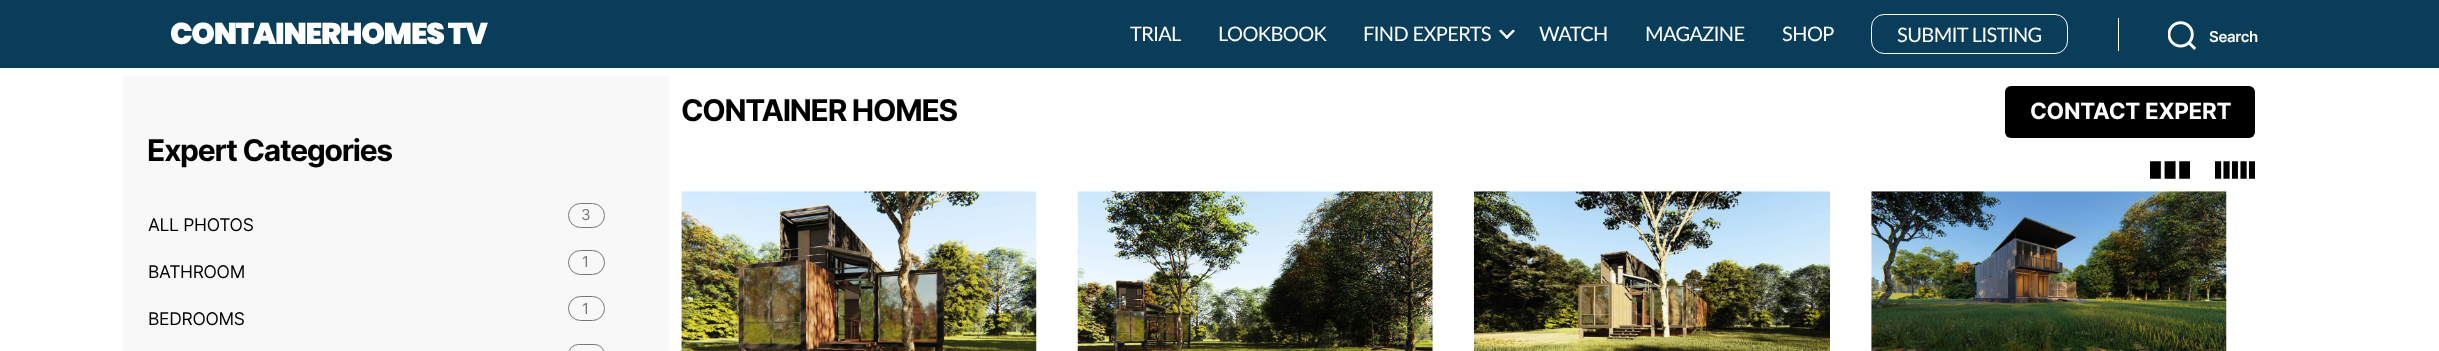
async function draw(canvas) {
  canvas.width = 2439
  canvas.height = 351
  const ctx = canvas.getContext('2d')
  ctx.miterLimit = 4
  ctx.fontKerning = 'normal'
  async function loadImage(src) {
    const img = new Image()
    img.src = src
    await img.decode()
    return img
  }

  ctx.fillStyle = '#fff'
  ctx.fillRect(0, 0, 2439, 351)
  ctx.fillStyle = '#0a3d5a'
  ctx.fillRect(0, 0, 2439, 68)
  ctx.letterSpacing = '-1.25px'
  ctx.font = '900 30px Poppins'
  ctx.fillStyle = '#fff'
  ctx.fillText('CONTAINERHOMES TV', 170, 44)
  ctx.letterSpacing = '-0.6px'
  ctx.font = '20px Lato'
  ctx.fillText('TRIAL', 1130, 41)
  ctx.fillText('LOOKBOOK', 1218, 41)
  ctx.fillText('FIND EXPERTS', 1363, 41)
  ctx.beginPath()
  ctx.moveTo(1499, 31)
  ctx.lineTo(1501, 29.5)
  ctx.lineTo(1508.5, 37.5)
  ctx.lineTo(1507, 39)
  ctx.closePath()
  ctx.fill()
  ctx.beginPath()
  ctx.moveTo(1505, 37.5)
  ctx.lineTo(1513, 29.5)
  ctx.lineTo(1515, 31)
  ctx.lineTo(1507, 39)
  ctx.closePath()
  ctx.fill()
  ctx.fillText('WATCH', 1539, 41)
  ctx.fillText('MAGAZINE', 1645, 41)
  ctx.fillText('SHOP', 1782, 41)
  ctx.beginPath()
  ctx.roundRect(1871.5, 14.5, 196, 39, 12.5)
  ctx.strokeStyle = '#fff'
  ctx.stroke()
  ctx.fillText('SUBMIT LISTING', 1897, 42)
  ctx.fillRect(2118, 18, 1, 33)
  ctx.drawImage(await loadImage('image0.png'), 2168, 21, 28, 29)
  ctx.letterSpacing = '-0.3px'
  ctx.font = '600 15px Inter'
  ctx.fillText('Search', 2209, 42)
  ctx.letterSpacing = '-1.25px'
  ctx.font = 'bold 30px Inter'
  ctx.fillStyle = '#000'
  ctx.fillText('CONTAINER HOMES', 681, 121)
  ctx.beginPath()
  ctx.roundRect(2005, 86, 250, 52, 6)
  ctx.fill()
  ctx.letterSpacing = '-0.3px'
  ctx.font = 'bold 22.5px Inter'
  ctx.fillStyle = '#fff'
  ctx.fillText('CONTACT EXPERT', 2030, 119)
  ctx.drawImage(await loadImage('image1.png'), 2150, 161, 40, 18)
  ctx.drawImage(await loadImage('image2.png'), 2215, 161, 40, 18)
  ctx.drawImage(await loadImage('image3.png'), 681, 191, 356, 160)
  ctx.drawImage(await loadImage('image4.png'), 1077, 191, 356, 160)
  ctx.drawImage(await loadImage('image5.png'), 1473, 191, 357, 160)
  ctx.drawImage(await loadImage('image6.png'), 1871, 191, 356, 160)
  ctx.fillStyle = '#f8f8f8'
  ctx.fillRect(123, 76, 546, 275)
  ctx.letterSpacing = '-1.25px'
  ctx.font = 'bold 30px Inter'
  ctx.fillStyle = '#000'
  ctx.fillText('Expert Categories', 147, 161)
  ctx.beginPath()
  ctx.roundRect(568.5, 203.5, 36, 24, 12)
  ctx.strokeStyle = '#777'
  ctx.stroke()
  ctx.letterSpacing = '-0.3px'
  ctx.font = '15px Inter'
  ctx.fillStyle = '#777'
  ctx.fillText('3', 581, 220)
  ctx.font = '17.5px Inter'
  ctx.fillStyle = '#000'
  ctx.fillText('ALL PHOTOS', 148, 231)
  ctx.beginPath()
  ctx.roundRect(568.5, 250.5, 36, 24, 12)
  ctx.stroke()
  ctx.font = '15px Inter'
  ctx.fillStyle = '#777'
  ctx.fillText('1', 582, 267)
  ctx.font = '17.5px Inter'
  ctx.fillStyle = '#000'
  ctx.fillText('BATHROOM', 148, 278)
  ctx.beginPath()
  ctx.roundRect(568.5, 296.5, 36, 24, 12)
  ctx.stroke()
  ctx.font = '15px Inter'
  ctx.fillStyle = '#777'
  ctx.fillText('1', 582, 314)
  ctx.font = '17.5px Inter'
  ctx.fillStyle = '#000'
  ctx.fillText('BEDROOMS', 148, 325)
  ctx.beginPath()
  ctx.roundRect(568.5, 344.5, 36, 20, 12)
  ctx.stroke()
}

draw(document.querySelector('canvas'))
